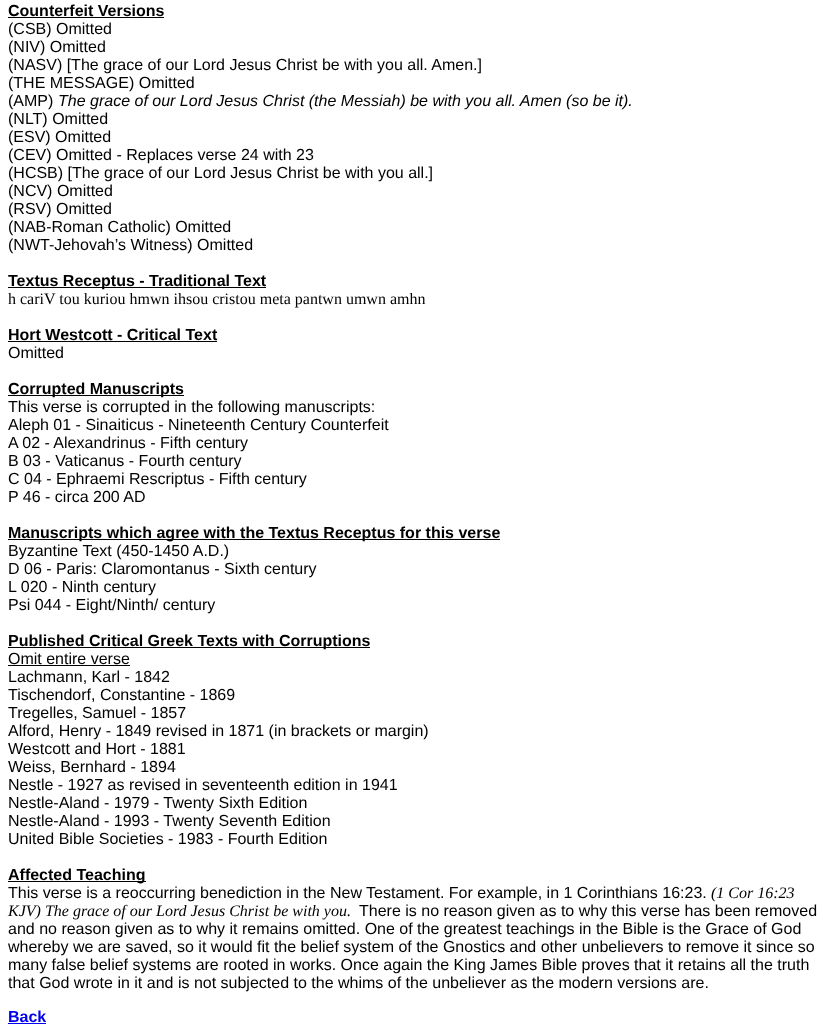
async function draw(canvas) {
  canvas.width = 832
  canvas.height = 1032
  const ctx = canvas.getContext('2d')
  ctx.miterLimit = 4
  ctx.fontKerning = 'normal'

  ctx.fillStyle = '#fff'
  ctx.fillRect(0, 0, 832, 1032)
  ctx.font = 'bold 16px Liberation Sans'
  ctx.fillStyle = '#000'
  ctx.fillText('Counterfeit Versions', 8, 16)
  ctx.fillRect(8, 17, 156, 1)
  ctx.font = '16px Liberation Sans'
  ctx.fillText('(CSB) Omitted', 8, 34)
  ctx.fillText('(NIV) Omitted', 8, 52)
  ctx.fillText('(NASV) [The grace of our Lord Jesus Christ be with you all. Amen.]', 8, 70)
  ctx.fillText('(THE MESSAGE) Omitted', 8, 88)
  ctx.fillText('(AMP)', 8, 106)
  ctx.font = 'italic 16px Liberation Sans'
  ctx.fillText('The grace of our Lord Jesus Christ (the Messiah) be with you all. Amen (so be it).', 58, 106)
  ctx.font = '16px Liberation Sans'
  ctx.fillText('(NLT) Omitted', 8, 124)
  ctx.fillText('(ESV) Omitted', 8, 142)
  ctx.fillText('(CEV) Omitted - Replaces verse 24 with 23', 8, 160)
  ctx.fillText('(HCSB) [The grace of our Lord Jesus Christ be with you all.]', 8, 178)
  ctx.fillText('(NCV) Omitted', 8, 196)
  ctx.fillText('(RSV) Omitted', 8, 214)
  ctx.fillText('(NAB-Roman Catholic) Omitted', 8, 232)
  ctx.fillText('(NWT-Jehovah’s Witness) Omitted', 8, 250)
  ctx.fillRect(8, 287, 258, 1)
  ctx.font = 'bold 16px Liberation Sans'
  ctx.fillText('Textus Receptus - Traditional Text', 8, 286)
  ctx.font = '16px Liberation Serif'
  ctx.fillText('h cariV tou kuriou hmwn ihsou cristou meta pantwn umwn amhn', 8, 304)
  ctx.font = 'bold 16px Liberation Sans'
  ctx.fillText('Hort Westcott - Critical Text', 8, 340)
  ctx.fillRect(8, 341, 209, 1)
  ctx.font = '16px Liberation Sans'
  ctx.fillText('Omitted', 8, 358)
  ctx.fillRect(8, 395, 176, 1)
  ctx.font = 'bold 16px Liberation Sans'
  ctx.fillText('Corrupted Manuscripts', 8, 394)
  ctx.font = '16px Liberation Sans'
  ctx.fillText('This verse is corrupted in the following manuscripts:', 8, 412)
  ctx.fillText('Aleph 01 - Sinaiticus - Nineteenth Century Counterfeit', 8, 430)
  ctx.fillText('A 02 - Alexandrinus - Fifth century', 8, 448)
  ctx.fillText('B 03 - Vaticanus - Fourth century', 8, 466)
  ctx.fillText('C 04 - Ephraemi Rescriptus - Fifth century', 8, 484)
  ctx.fillText('P 46 - circa 200 AD', 8, 502)
  ctx.fillRect(8, 539, 492, 1)
  ctx.font = 'bold 16px Liberation Sans'
  ctx.fillText('Manuscripts which agree with the Textus Receptus for this verse', 8, 538)
  ctx.font = '16px Liberation Sans'
  ctx.fillText('Byzantine Text (450-1450 A.D.)', 8, 556)
  ctx.fillText('D 06 - Paris: Claromontanus - Sixth century', 8, 574)
  ctx.fillText('L 020 - Ninth century', 8, 592)
  ctx.fillText('Psi 044 - Eight/Ninth/ century', 8, 610)
  ctx.fillRect(8, 647, 362, 1)
  ctx.font = 'bold 16px Liberation Sans'
  ctx.fillText('Published Critical Greek Texts with Corruptions', 8, 646)
  ctx.font = '16px Liberation Sans'
  ctx.fillText('Omit entire verse', 8, 664)
  ctx.fillRect(8, 665, 122, 1)
  ctx.fillText('Lachmann, Karl - 1842', 8, 682)
  ctx.fillText('Tischendorf, Constantine - 1869', 8, 700)
  ctx.fillText('Tregelles, Samuel - 1857', 8, 718)
  ctx.fillText('Alford, Henry - 1849 revised in 1871 (in brackets or margin)', 8, 736)
  ctx.fillText('Westcott and Hort - 1881', 8, 754)
  ctx.fillText('Weiss, Bernhard - 1894', 8, 772)
  ctx.fillText('Nestle - 1927 as revised in seventeenth edition in 1941', 8, 790)
  ctx.fillText('Nestle-Aland - 1979 - Twenty Sixth Edition', 8, 808)
  ctx.fillText('Nestle-Aland - 1993 - Twenty Seventh Edition', 8, 826)
  ctx.fillText('United Bible Societies - 1983 - Fourth Edition', 8, 844)
  ctx.fillRect(8, 881, 138, 1)
  ctx.font = 'bold 16px Liberation Sans'
  ctx.fillText('Affected Teaching', 8, 880)
  ctx.font = '16px Liberation Sans'
  ctx.fillText('This verse is a reoccurring benediction in the New Testament. For example, in 1 Corinthians 16:23.', 8, 898)
  ctx.font = 'italic 16px Liberation Serif'
  ctx.fillText('(1 Cor 16:23', 711, 898)
  ctx.fillText('KJV) The grace of our Lord Jesus Christ be with you.', 8, 916)
  ctx.font = '16px Liberation Sans'
  ctx.fillText('There is no reason given as to why this verse has been removed', 359, 916)
  ctx.fillText('and no reason given as to why it remains omitted. One of the greatest teachings in the Bible is the Grace of God', 8, 934)
  ctx.fillText('whereby we are saved, so it would fit the belief system of the Gnostics and other unbelievers to remove it since so', 8, 952)
  ctx.fillText('many false belief systems are rooted in works. Once again the King James Bible proves that it retains all the truth', 8, 970)
  ctx.fillText('that God wrote in it and is not subjected to the whims of the unbeliever as the modern versions are.', 8, 988)
  ctx.font = 'bold 16px Liberation Sans'
  ctx.fillStyle = '#00e'
  ctx.fillText('Back', 8, 1022)
  ctx.fillRect(8, 1023, 38, 1)
}

draw(document.querySelector('canvas'))
